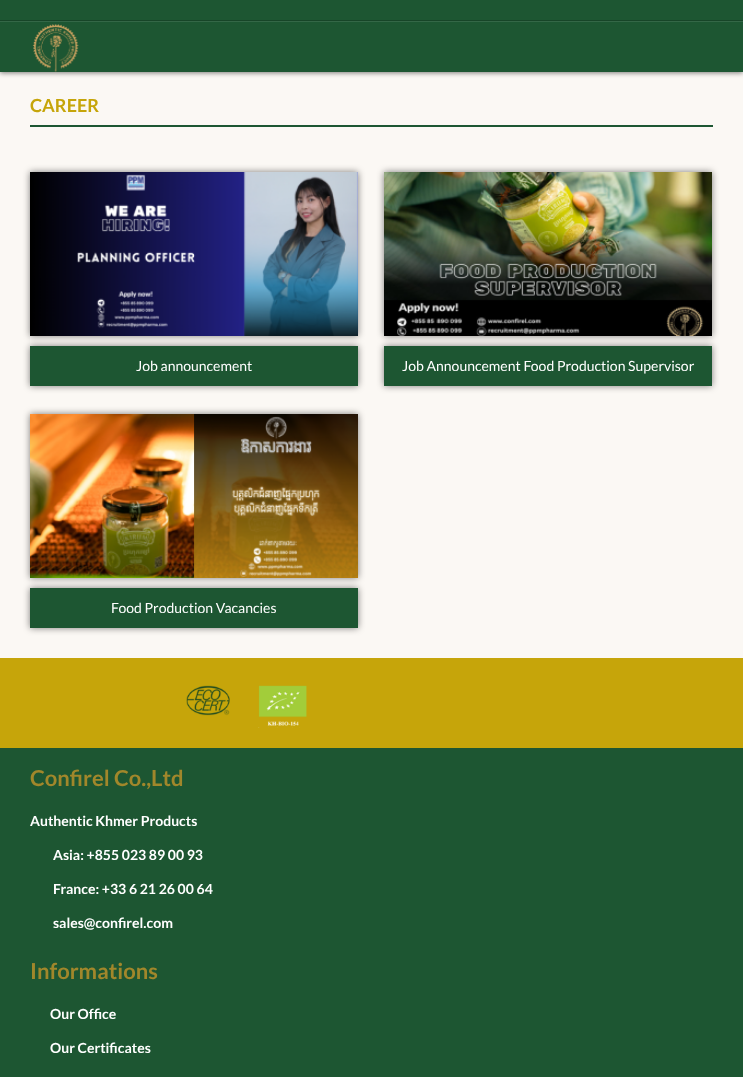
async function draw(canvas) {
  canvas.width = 743
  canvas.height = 1077
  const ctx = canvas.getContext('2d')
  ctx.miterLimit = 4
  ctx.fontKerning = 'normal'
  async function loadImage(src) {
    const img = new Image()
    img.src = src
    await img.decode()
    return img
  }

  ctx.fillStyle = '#fbf8f4'
  ctx.fillRect(0, 0, 743, 1077)
  ctx.fillStyle = '#00000080'
  ctx.filter = 'blur(2.5px)'
  ctx.beginPath()
  ctx.rect(0, 1, 743, 72)
  ctx.fill()
  ctx.filter = 'none'
  ctx.fillStyle = '#1d5632'
  ctx.fillRect(0, 0, 743, 72)
  ctx.fillStyle = '#174528'
  ctx.fillRect(0, 20, 743, 1)
  ctx.fillStyle = '#346747'
  ctx.fillRect(0, 21, 743, 1)
  ctx.drawImage(await loadImage('image0.png'), 32, 24, 47, 48)
  ctx.font = 'bold 18px Lato'
  ctx.fillStyle = '#c6a50a'
  ctx.fillText('CAREER', 30, 112)
  ctx.fillStyle = '#1d5632'
  ctx.fillRect(30, 125, 683, 2)
  ctx.fillStyle = '#00000080'
  ctx.filter = 'blur(3.5px)'
  ctx.beginPath()
  ctx.rect(30, 346, 328, 40)
  ctx.fill()
  ctx.filter = 'none'
  ctx.fillStyle = '#1d5632'
  ctx.fillRect(30, 346, 328, 40)
  ctx.fillStyle = '#00000080'
  ctx.filter = 'blur(3.5px)'
  ctx.beginPath()
  ctx.rect(30, 172, 328, 164)
  ctx.fill()
  ctx.filter = 'none'
  ctx.drawImage(await loadImage('image1.png'), 30, 172, 328, 164)
  ctx.font = '14px Lato'
  ctx.fillStyle = '#fff'
  ctx.fillText('Job announcement', 136, 371)
  ctx.fillStyle = '#00000080'
  ctx.filter = 'blur(3.5px)'
  ctx.beginPath()
  ctx.rect(384, 346, 328, 40)
  ctx.fill()
  ctx.filter = 'none'
  ctx.fillStyle = '#1d5632'
  ctx.fillRect(384, 346, 328, 40)
  ctx.fillStyle = '#00000080'
  ctx.filter = 'blur(3.5px)'
  ctx.beginPath()
  ctx.rect(384, 172, 328, 164)
  ctx.fill()
  ctx.filter = 'none'
  ctx.drawImage(await loadImage('image2.png'), 384, 172, 328, 164)
  ctx.fillStyle = '#fff'
  ctx.fillText('Job Announcement Food Production Supervisor', 402, 371)
  ctx.fillStyle = '#00000080'
  ctx.filter = 'blur(3.5px)'
  ctx.beginPath()
  ctx.rect(30, 588, 328, 40)
  ctx.fill()
  ctx.filter = 'none'
  ctx.fillStyle = '#1d5632'
  ctx.fillRect(30, 588, 328, 40)
  ctx.fillStyle = '#00000080'
  ctx.filter = 'blur(3.5px)'
  ctx.beginPath()
  ctx.rect(30, 414, 328, 164)
  ctx.fill()
  ctx.filter = 'none'
  ctx.drawImage(await loadImage('image3.png'), 30, 414, 328, 164)
  ctx.fillStyle = '#fff'
  ctx.fillText('Food Production Vacancies', 111, 613)
  ctx.fillStyle = '#c6a50a'
  ctx.fillRect(0, 658, 743, 90)
  ctx.drawImage(await loadImage('image4.png'), 186, 685, 44, 31)
  ctx.drawImage(await loadImage('image5.png'), 258, 685, 49, 43)
  ctx.fillStyle = '#1d5632'
  ctx.fillRect(0, 748, 743, 329)
  ctx.font = 'bold 22px Lato'
  ctx.fillStyle = '#a1872b'
  ctx.fillText('Confirel Co.,Ltd', 30, 786)
  ctx.font = 'bold 14px Lato'
  ctx.fillStyle = '#fff'
  ctx.fillText('Authentic Khmer Products', 30, 826)
  ctx.fillText('Asia: +855 023 89 00 93', 53, 860)
  ctx.fillText('France: +33 6 21 26 00 64', 53, 894)
  ctx.fillText('sales@confirel.com', 53, 928)
  ctx.font = 'bold 22px Lato'
  ctx.fillStyle = '#a1872b'
  ctx.fillText('Informations', 30, 979)
  ctx.font = 'bold 14px Lato'
  ctx.fillStyle = '#fff'
  ctx.fillText('Our Office', 50, 1019)
  ctx.fillText('Our Certificates', 50, 1053)
}

draw(document.querySelector('canvas'))
